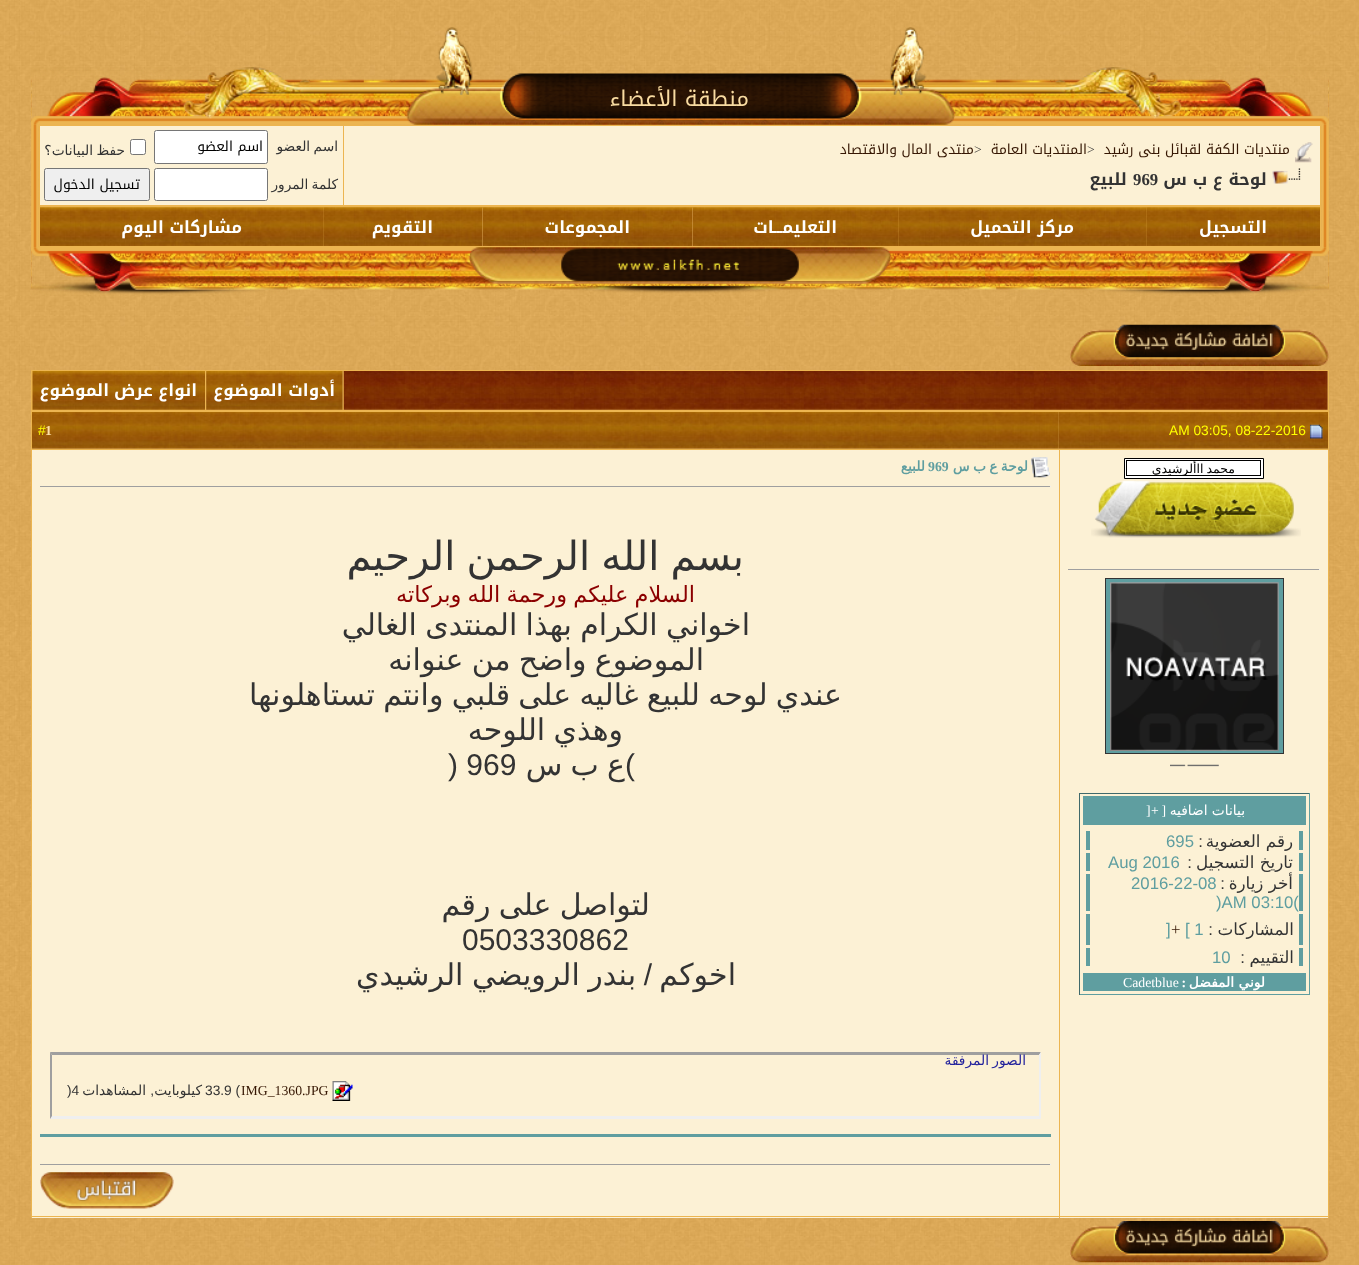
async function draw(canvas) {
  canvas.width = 1359
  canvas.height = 1265
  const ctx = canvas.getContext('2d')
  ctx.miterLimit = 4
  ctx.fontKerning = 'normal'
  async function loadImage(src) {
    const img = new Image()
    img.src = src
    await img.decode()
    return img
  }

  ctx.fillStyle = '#fff'
  ctx.fillRect(0, 0, 1359, 1265)
  ctx.drawImage(await loadImage('image0.png'), 0, 0, 1359, 1265)
  ctx.drawImage(await loadImage('image2.png'), 31, 124, 1298, 124)
  ctx.drawImage(await loadImage('image1.png'), 31, 27, 1298, 98)
  ctx.direction = 'rtl'
  ctx.font = '21.75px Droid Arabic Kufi'
  ctx.fillStyle = '#f8dba1'
  ctx.fillText('منطقة الأعضاء', 749, 106)
  ctx.fillStyle = '#ecb551'
  ctx.fillRect(39, 125, 1282, 123)
  ctx.fillStyle = '#fcf1d5'
  ctx.fillRect(344, 126, 976, 79)
  ctx.drawImage(await loadImage('image3.png'), 1295, 142, 18, 21)
  ctx.font = '13.75px Droid Arabic Kufi'
  ctx.fillStyle = '#361703'
  ctx.fillText('منتديات الكفة لقبائل بنى رشيد', 1290, 154)
  ctx.direction = 'ltr'
  ctx.font = '13.75px Liberation Serif'
  ctx.fillStyle = '#333'
  ctx.fillText('>', 1087, 154)
  ctx.direction = 'rtl'
  ctx.font = '13.75px Droid Arabic Kufi'
  ctx.fillStyle = '#361703'
  ctx.fillText('المنتديات العامة', 1087, 154)
  ctx.direction = 'ltr'
  ctx.font = '13.75px Liberation Serif'
  ctx.fillStyle = '#333'
  ctx.fillText('>', 974, 154)
  ctx.direction = 'rtl'
  ctx.font = '13.75px Droid Arabic Kufi'
  ctx.fillStyle = '#361703'
  ctx.fillText('منتدى المال والاقتصاد', 974, 154)
  ctx.drawImage(await loadImage('image4.png'), 1272, 168, 29, 16)
  ctx.font = 'bold 16.75px Droid Arabic Kufi'
  ctx.fillStyle = '#333'
  ctx.fillText('لوحة ع ب س', 1267, 185)
  ctx.direction = 'ltr'
  ctx.font = 'bold 16.75px Liberation Serif'
  ctx.fillText('969', 1133, 185)
  ctx.direction = 'rtl'
  ctx.font = 'bold 16.75px Droid Arabic Kufi'
  ctx.fillText('للبيع', 1127, 185)
  ctx.fillStyle = '#fcf1d5'
  ctx.fillRect(40, 126, 303, 79)
  ctx.wordSpacing = '-1px'
  ctx.font = '13.75px DejaVu Sans'
  ctx.fillStyle = '#333'
  ctx.fillText('اسم العضو', 338, 151)
  ctx.fillStyle = '#fff'
  ctx.beginPath()
  ctx.roundRect(154.5, 130.5, 113, 33, 2)
  ctx.fill()
  ctx.strokeStyle = '#767676'
  ctx.stroke()
  ctx.wordSpacing = '0px'
  ctx.font = '13.75px Droid Arabic Kufi'
  ctx.fillStyle = '#000'
  ctx.fillText('اسم العضو', 263, 151)
  ctx.fillStyle = '#fff'
  ctx.beginPath()
  ctx.roundRect(130.5, 139.5, 15, 15, 2)
  ctx.fill()
  ctx.stroke()
  ctx.wordSpacing = '-1px'
  ctx.font = '13.75px DejaVu Sans'
  ctx.fillStyle = '#333'
  ctx.fillText('حفظ البيانات؟', 125, 155)
  ctx.fillText('كلمة المرور', 338, 189)
  ctx.fillStyle = '#fff'
  ctx.beginPath()
  ctx.roundRect(154.5, 168.5, 113, 32, 2)
  ctx.fill()
  ctx.stroke()
  ctx.fillStyle = '#efefef'
  ctx.beginPath()
  ctx.roundRect(44.5, 168.5, 105, 32, 2)
  ctx.fill()
  ctx.stroke()
  ctx.wordSpacing = '0px'
  ctx.font = '13.75px Droid Arabic Kufi'
  ctx.fillStyle = '#000'
  ctx.fillText('تسجيل الدخول', 140, 189)
  ctx.drawImage(await loadImage('image5.png'), 1146, 207, 174, 39)
  ctx.font = 'bold 16.75px Droid Arabic Kufi'
  ctx.fillStyle = '#fff'
  ctx.fillText('التسجيل', 1267, 233)
  ctx.drawImage(await loadImage('image6.png'), 898, 207, 249, 39)
  ctx.fillText('مركز التحميل', 1074, 233)
  ctx.drawImage(await loadImage('image7.png'), 692, 207, 207, 39)
  ctx.fillText('التعليمـــات', 837, 233)
  ctx.fillStyle = '#deaa5b'
  ctx.fillRect(692, 208, 1, 38)
  ctx.drawImage(await loadImage('image8.png'), 482, 207, 211, 39)
  ctx.fillStyle = '#fff'
  ctx.fillText('المجموعات', 630, 233)
  ctx.fillStyle = '#deaa5b'
  ctx.fillRect(482, 208, 1, 38)
  ctx.drawImage(await loadImage('image9.png'), 323, 207, 160, 39)
  ctx.fillStyle = '#fff'
  ctx.fillText('التقويم', 433, 233)
  ctx.drawImage(await loadImage('image10.png'), 40, 207, 284, 39)
  ctx.fillText('مشاركات اليوم', 242, 233)
  ctx.drawImage(await loadImage('image11.png'), 31, 247, 1298, 48)
  ctx.drawImage(await loadImage('image12.png'), 1070, 324, 259, 42)
  ctx.fillStyle = '#ecb551'
  ctx.fillRect(31, 370, 1298, 41)
  ctx.fillStyle = '#deaa5b'
  ctx.fillRect(344, 371, 984, 39)
  ctx.drawImage(await loadImage('image13.png'), 343, 371, 985, 39)
  ctx.fillRect(206, 371, 137, 39)
  ctx.drawImage(await loadImage('image14.png'), 206, 371, 137, 39)
  ctx.fillStyle = '#fff'
  ctx.fillText('أدوات الموضوع', 335, 396)
  ctx.drawImage(await loadImage('image15.png'), 32, 371, 173, 39)
  ctx.fillText('انواع عرض', 197, 396)
  ctx.fillText('الموضوع', 109, 396)
  ctx.fillStyle = '#deaa5b'
  ctx.fillRect(1059, 448, 269, 1)
  ctx.drawImage(await loadImage('image16.png'), 1059, 412, 269, 37)
  ctx.fillStyle = '#ecb551'
  ctx.fillRect(31, 411, 1298, 1)
  ctx.fillRect(1328, 411, 1, 807)
  ctx.fillRect(31, 449, 1298, 1)
  ctx.drawImage(await loadImage('image17.png'), 1310, 424, 13, 15)
  ctx.direction = 'ltr'
  ctx.font = '13.75px Liberation Sans'
  ctx.fillStyle = '#ff0'
  ctx.fillText('AM 03:05, 08-22-2016', 1169, 435)
  ctx.fillStyle = '#deaa5b'
  ctx.fillRect(32, 412, 1027, 37)
  ctx.drawImage(await loadImage('image18.png'), 32, 412, 1027, 37)
  ctx.fillStyle = '#ecb551'
  ctx.fillRect(31, 411, 1, 627)
  ctx.font = 'bold 13.75px Liberation Serif'
  ctx.fillStyle = '#fee0aa'
  ctx.fillText('1', 45, 435)
  ctx.font = '13.75px Liberation Sans'
  ctx.fillStyle = '#ff0'
  ctx.fillText('#', 38, 435)
  ctx.fillStyle = '#fcf1d5'
  ctx.fillRect(1060, 450, 268, 768)
  ctx.fillStyle = '#ecb551'
  ctx.fillRect(1059, 450, 1, 588)
  ctx.fillStyle = '#fff'
  ctx.beginPath()
  ctx.rect(1124.5, 458.5, 139, 20)
  ctx.fill()
  ctx.strokeStyle = '#000'
  ctx.stroke()
  ctx.strokeRect(1126.5, 460.5, 134, 15)
  ctx.save()
  ctx.beginPath()
  ctx.rect(1128, 461, 132, 14)
  ctx.clip()
  ctx.wordSpacing = '-1px'
  ctx.direction = 'rtl'
  ctx.font = '12.5px DejaVu Sans'
  ctx.fillStyle = '#000'
  ctx.fillText('محمد ااألرشيدي', 1235, 473)
  ctx.restore()
  ctx.drawImage(await loadImage('image19.png'), 1091, 480, 210, 58)
  ctx.fillStyle = '#9f9f9f'
  ctx.fillRect(1068, 569, 252, 1)
  ctx.fillStyle = '#eee'
  ctx.fillRect(1319, 569, 1, 1)
  ctx.fillStyle = '#5f9ea0'
  ctx.fillRect(1106, 579, 177, 174)
  ctx.fillStyle = '#333'
  ctx.fillRect(1105, 578, 179, 1)
  ctx.fillRect(1283, 578, 1, 176)
  ctx.fillRect(1105, 753, 179, 1)
  ctx.fillRect(1105, 578, 1, 176)
  ctx.drawImage(await loadImage('image20.png'), 1110, 582, 169, 169)
  ctx.drawImage(await loadImage('image21.png'), 1170, 764, 49, 3)
  ctx.fillStyle = '#3f696b'
  ctx.fillRect(1079, 793, 231, 1)
  ctx.fillStyle = '#5f9ea0'
  ctx.fillRect(1309, 793, 1, 202)
  ctx.fillRect(1079, 994, 231, 1)
  ctx.fillStyle = '#3f696b'
  ctx.fillRect(1079, 793, 1, 202)
  ctx.fillStyle = '#5f9ea0'
  ctx.fillRect(1083, 796, 223, 29)
  ctx.direction = 'rtl'
  ctx.font = '13.75px DejaVu Sans'
  ctx.fillStyle = '#fff'
  ctx.fillText('بيانات اضافيه', 1245, 815)
  ctx.font = '13.75px Liberation Serif'
  ctx.fillText('[', 1166, 815)
  ctx.direction = 'ltr'
  ctx.fillText('+', 1151, 815)
  ctx.fillText(']', 1146, 815)
  ctx.fillStyle = '#5f9ea0'
  ctx.fillRect(1299, 831, 4, 19)
  ctx.fillRect(1086, 831, 4, 19)
  ctx.direction = 'rtl'
  ctx.font = '16.75px DejaVu Sans'
  ctx.fillStyle = '#333'
  ctx.fillText('رقم العضوية', 1293, 847)
  ctx.font = '16.75px Liberation Sans'
  ctx.fillText(':', 1203, 847)
  ctx.direction = 'ltr'
  ctx.fillStyle = '#5f9ea0'
  ctx.fillText('695', 1166, 847)
  ctx.fillRect(1299, 853, 4, 18)
  ctx.fillRect(1086, 853, 4, 18)
  ctx.direction = 'rtl'
  ctx.font = '16.75px DejaVu Sans'
  ctx.fillStyle = '#333'
  ctx.fillText('تاريخ التسجيل', 1293, 868)
  ctx.font = '16.75px Liberation Sans'
  ctx.fillText(':', 1192, 868)
  ctx.direction = 'ltr'
  ctx.fillStyle = '#5f9ea0'
  ctx.fillText('Aug 2016', 1108, 868)
  ctx.fillRect(1299, 874, 4, 37)
  ctx.fillRect(1086, 874, 4, 37)
  ctx.direction = 'rtl'
  ctx.font = '16.75px DejaVu Sans'
  ctx.fillStyle = '#333'
  ctx.fillText('أخر زيارة', 1293, 889)
  ctx.font = '16.75px Liberation Sans'
  ctx.fillText(':', 1225, 889)
  ctx.direction = 'ltr'
  ctx.fillStyle = '#5f9ea0'
  ctx.fillText('2016-22-08', 1131, 889)
  ctx.fillText(')AM 03:10(', 1216, 908)
  ctx.fillRect(1299, 914, 4, 31)
  ctx.fillRect(1086, 914, 4, 31)
  ctx.direction = 'rtl'
  ctx.font = '16.75px DejaVu Sans'
  ctx.fillStyle = '#333'
  ctx.fillText('المشاركات', 1294, 935)
  ctx.font = '16.75px Liberation Sans'
  ctx.fillText(':', 1213, 935)
  ctx.direction = 'ltr'
  ctx.fillStyle = '#5f9ea0'
  ctx.fillText('[ 1', 1185, 935)
  ctx.font = '16.75px Liberation Serif'
  ctx.fillStyle = '#361703'
  ctx.fillText('+', 1171, 935)
  ctx.font = '16.75px Liberation Sans'
  ctx.fillStyle = '#5f9ea0'
  ctx.fillText(']', 1166, 935)
  ctx.fillRect(1299, 948, 4, 18)
  ctx.fillRect(1086, 948, 4, 18)
  ctx.direction = 'rtl'
  ctx.font = '16.75px DejaVu Sans'
  ctx.fillStyle = '#333'
  ctx.fillText('التقييم', 1294, 963)
  ctx.font = '16.75px Liberation Sans'
  ctx.fillText(':', 1245, 963)
  ctx.direction = 'ltr'
  ctx.fillStyle = '#5f9ea0'
  ctx.fillText('10', 1212, 963)
  ctx.fillRect(1083, 973, 223, 18)
  ctx.direction = 'rtl'
  ctx.font = 'bold 13.75px DejaVu Sans'
  ctx.fillStyle = '#fff'
  ctx.fillText('لوني المفضل', 1265, 987)
  ctx.font = 'bold 13.75px Liberation Serif'
  ctx.fillText(':', 1186, 987)
  ctx.direction = 'ltr'
  ctx.font = '13.75px Liberation Serif'
  ctx.fillText('Cadetblue', 1123, 987)
  ctx.fillStyle = '#fcf1d5'
  ctx.fillRect(32, 450, 1027, 768)
  ctx.drawImage(await loadImage('image22.png'), 1031, 457, 19, 21)
  ctx.wordSpacing = '-1px'
  ctx.direction = 'rtl'
  ctx.font = 'bold 13.75px DejaVu Sans'
  ctx.fillStyle = '#5f9ea0'
  ctx.fillText('لوحة ع ب س', 1028, 471)
  ctx.wordSpacing = '0px'
  ctx.direction = 'ltr'
  ctx.font = 'bold 13.75px Liberation Serif'
  ctx.fillText('969', 928, 471)
  ctx.direction = 'rtl'
  ctx.font = 'bold 13.75px DejaVu Sans'
  ctx.fillText('للبيع', 925, 471)
  ctx.fillStyle = '#9f9f9f'
  ctx.fillRect(40, 486, 1011, 1)
  ctx.fillStyle = '#eee'
  ctx.fillRect(1050, 486, 1, 1)
  ctx.wordSpacing = '-1.5px'
  ctx.font = '40px DejaVu Sans'
  ctx.fillStyle = '#333'
  ctx.fillText('بسم الله الرحمن الرحيم', 744, 570)
  ctx.wordSpacing = '-1px'
  ctx.font = '22.5px DejaVu Sans'
  ctx.fillStyle = '#8b0000'
  ctx.fillText('السلام عليكم ورحمة الله وبركاته', 695, 602)
  ctx.wordSpacing = '-1.25px'
  ctx.font = '30px DejaVu Sans'
  ctx.fillStyle = '#333'
  ctx.fillText('اخواني الكرام بهذا المنتدى الغالي', 750, 635)
  ctx.fillText('الموضوع واضح من عنوانه', 704, 670)
  ctx.fillText('عندي لوحه للبيع غاليه على قلبي وانتم تستاهلونها', 842, 705)
  ctx.fillText('وهذي اللوحه', 623, 740)
  ctx.wordSpacing = '0px'
  ctx.direction = 'ltr'
  ctx.font = '30px Liberation Sans'
  ctx.fillText('(', 625, 775)
  ctx.wordSpacing = '-1.25px'
  ctx.direction = 'rtl'
  ctx.font = '30px DejaVu Sans'
  ctx.fillText('ع ب س', 625, 775)
  ctx.wordSpacing = '0px'
  ctx.direction = 'ltr'
  ctx.font = '30px Liberation Sans'
  ctx.fillText(') 969', 448, 775)
  ctx.wordSpacing = '-1.25px'
  ctx.direction = 'rtl'
  ctx.font = '30px DejaVu Sans'
  ctx.fillText('لتواصل على رقم', 650, 915)
  ctx.wordSpacing = '0px'
  ctx.direction = 'ltr'
  ctx.font = '30px Liberation Sans'
  ctx.fillText('0503330862', 462, 950)
  ctx.direction = 'rtl'
  ctx.font = '30px DejaVu Sans'
  ctx.fillText('اخوكم', 736, 985)
  ctx.font = '30px Liberation Sans'
  ctx.fillText('/', 652, 985)
  ctx.wordSpacing = '-1px'
  ctx.font = '30px DejaVu Sans'
  ctx.fillText('بندر الرويضي الرشيدي', 636, 985)
  ctx.fillStyle = '#ecb551'
  ctx.fillRect(31, 1216, 1298, 1)
  ctx.fillRect(1059, 1038, 1, 180)
  ctx.fillRect(31, 1038, 1, 180)
  ctx.fillStyle = '#9f9f9f'
  ctx.beginPath()
  ctx.moveTo(50, 1052)
  ctx.lineTo(1041, 1052)
  ctx.lineTo(1039, 1055)
  ctx.lineTo(52, 1055)
  ctx.closePath()
  ctx.fill()
  ctx.fillStyle = '#efefef'
  ctx.beginPath()
  ctx.moveTo(1041, 1052)
  ctx.lineTo(1041, 1119)
  ctx.lineTo(1039, 1116)
  ctx.lineTo(1039, 1055)
  ctx.closePath()
  ctx.fill()
  ctx.beginPath()
  ctx.moveTo(1041, 1119)
  ctx.lineTo(50, 1119)
  ctx.lineTo(52, 1116)
  ctx.lineTo(1039, 1116)
  ctx.closePath()
  ctx.fill()
  ctx.fillStyle = '#9f9f9f'
  ctx.beginPath()
  ctx.moveTo(50, 1119)
  ctx.lineTo(50, 1052)
  ctx.lineTo(52, 1055)
  ctx.lineTo(52, 1116)
  ctx.closePath()
  ctx.fill()
  ctx.font = '13.75px DejaVu Sans'
  ctx.fillStyle = '#22229c'
  ctx.fillText('الصور المرفقة', 1026, 1065)
  ctx.drawImage(await loadImage('image23.png'), 332, 1081, 21, 20)
  ctx.wordSpacing = '0px'
  ctx.direction = 'ltr'
  ctx.font = '13.75px Liberation Serif'
  ctx.fillStyle = '#361703'
  ctx.fillText('IMG_1360.JPG', 241, 1095)
  ctx.font = '13.75px Liberation Sans'
  ctx.fillStyle = '#333'
  ctx.fillText('33.9 (', 205, 1095)
  ctx.direction = 'rtl'
  ctx.font = '13.75px DejaVu Sans'
  ctx.fillText('كيلوبايت', 202, 1095)
  ctx.font = '13.75px Liberation Sans'
  ctx.fillText(',', 154, 1095)
  ctx.font = '13.75px DejaVu Sans'
  ctx.fillText('المشاهدات', 146, 1095)
  ctx.direction = 'ltr'
  ctx.font = '13.75px Liberation Sans'
  ctx.fillText(')4', 67, 1095)
  ctx.fillStyle = '#5f9ea0'
  ctx.fillRect(40, 1134, 1011, 3)
  ctx.fillStyle = '#9f9f9f'
  ctx.fillRect(40, 1164, 1011, 1)
  ctx.fillStyle = '#eee'
  ctx.fillRect(1050, 1164, 1, 1)
  ctx.drawImage(await loadImage('image24.png'), 40, 1172, 134, 37)
  ctx.drawImage(await loadImage('image25.png'), 1070, 1221, 259, 42)
}

draw(document.querySelector('canvas'))
